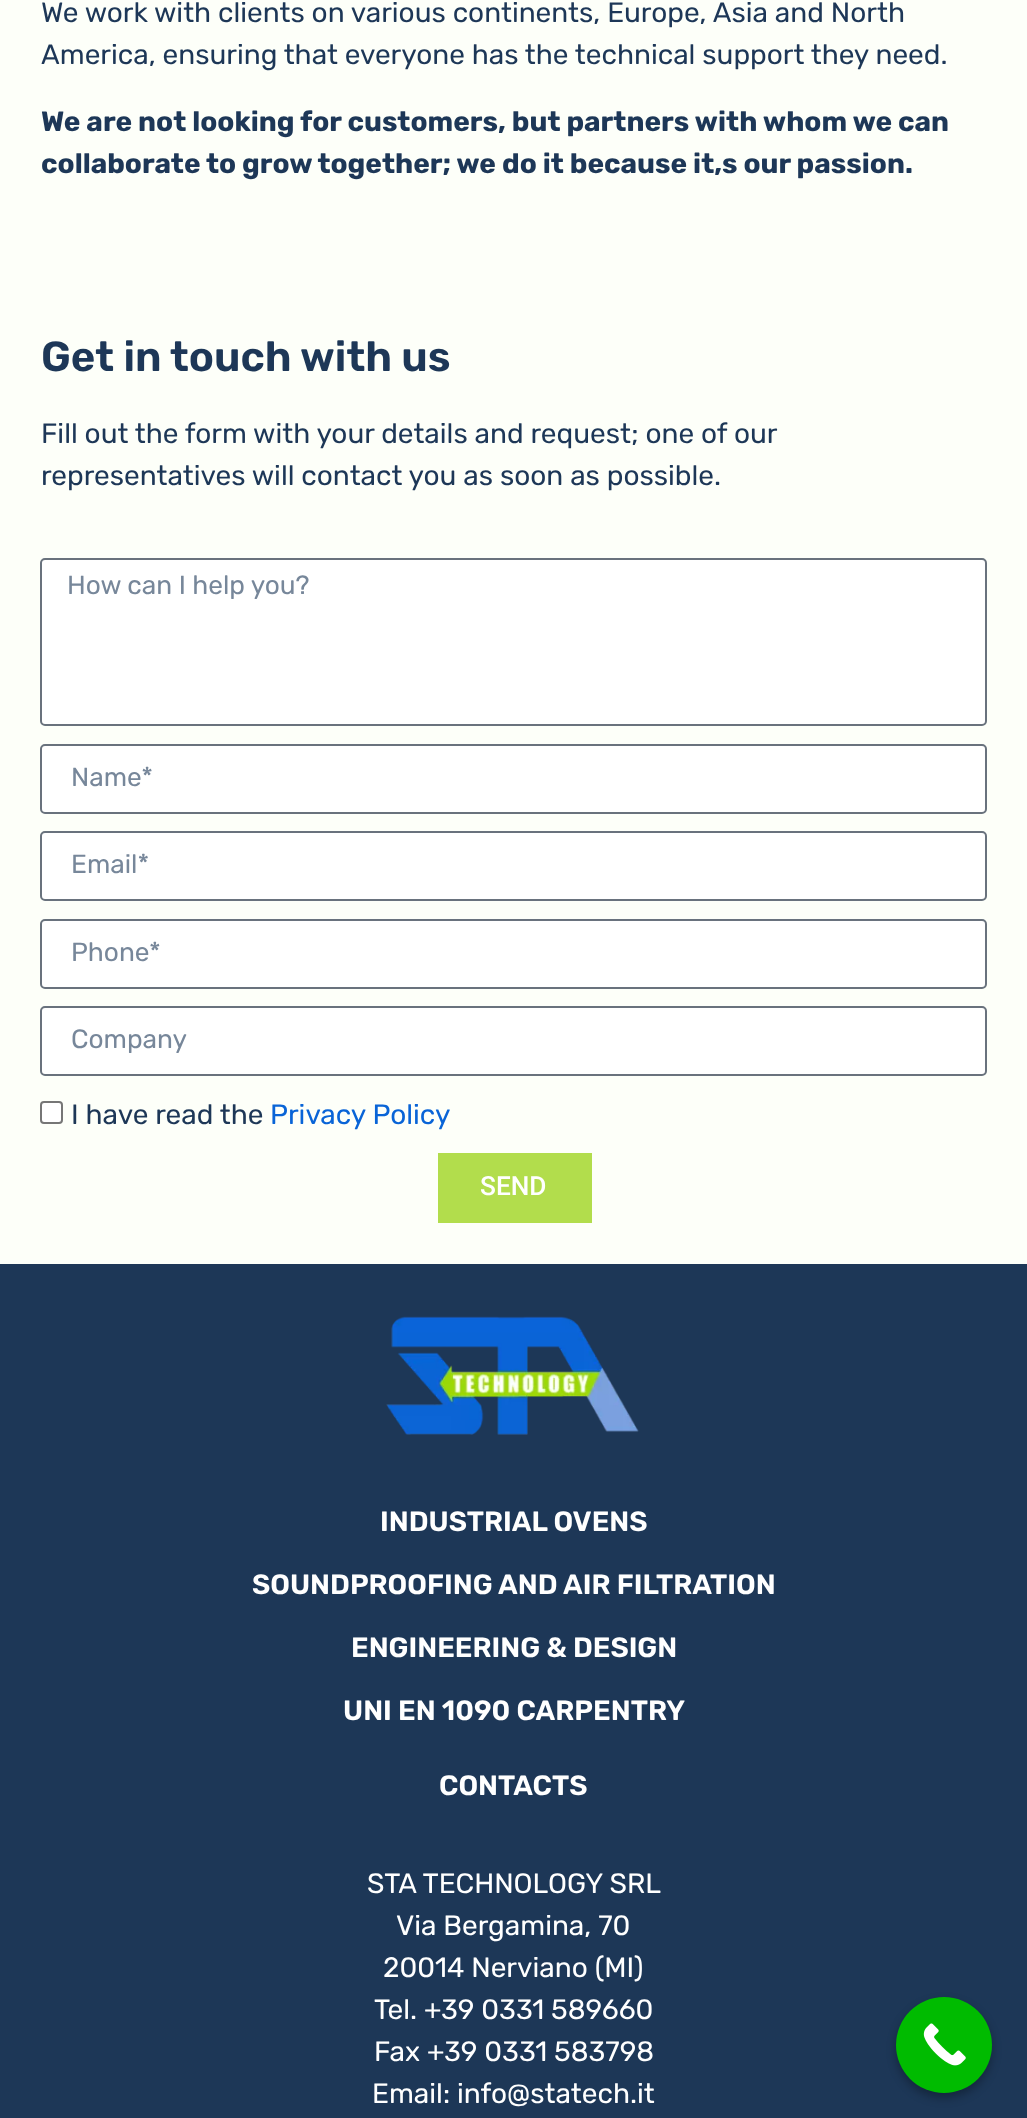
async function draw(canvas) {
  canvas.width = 1027
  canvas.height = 2118
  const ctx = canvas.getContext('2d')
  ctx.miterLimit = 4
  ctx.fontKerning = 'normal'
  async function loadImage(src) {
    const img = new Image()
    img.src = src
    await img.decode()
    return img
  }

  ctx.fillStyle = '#fdfff9'
  ctx.fillRect(0, 0, 1027, 2118)
  ctx.font = '28px Rubik'
  ctx.fillStyle = '#1d3757'
  ctx.fillText('We work with clients on various continents, Europe, Asia and North', 41, 22)
  ctx.fillText('America, ensuring that everyone has the technical support they need.', 41, 64)
  ctx.font = 'bold 28px Rubik'
  ctx.fillText('We are not looking for customers, but partners with whom we can', 41, 131)
  ctx.fillText('collaborate to grow together; we do it because it,s our passion.', 41, 173)
  ctx.font = '600 42px Rubik'
  ctx.fillText('Get in touch with us', 41, 371)
  ctx.font = '28px Rubik'
  ctx.fillText('Fill out the form with your details and request; one of our', 41, 443)
  ctx.fillText('representatives will contact you as soon as possible.', 41, 485)
  ctx.fillStyle = '#fff'
  ctx.beginPath()
  ctx.roundRect(41, 559, 945, 166, 4)
  ctx.fill()
  ctx.strokeStyle = '#69727d'
  ctx.lineWidth = 2
  ctx.stroke()
  ctx.font = '26.25px Rubik'
  ctx.fillStyle = '#77879a'
  ctx.fillText('How can I help you?', 67, 594)
  ctx.fillStyle = '#fff'
  ctx.beginPath()
  ctx.roundRect(41, 745, 945, 68, 4)
  ctx.fill()
  ctx.stroke()
  ctx.fillStyle = '#77879a'
  ctx.fillText('Name*', 71, 786)
  ctx.fillStyle = '#fff'
  ctx.beginPath()
  ctx.roundRect(41, 832, 945, 68, 4)
  ctx.fill()
  ctx.stroke()
  ctx.fillStyle = '#77879a'
  ctx.fillText('Email*', 71, 873)
  ctx.fillStyle = '#fff'
  ctx.beginPath()
  ctx.roundRect(41, 920, 945, 68, 4)
  ctx.fill()
  ctx.stroke()
  ctx.fillStyle = '#77879a'
  ctx.fillText('Phone*', 71, 961)
  ctx.fillStyle = '#fff'
  ctx.beginPath()
  ctx.roundRect(41, 1007, 945, 68, 4)
  ctx.fill()
  ctx.stroke()
  ctx.fillStyle = '#77879a'
  ctx.fillText('Company', 71, 1048)
  ctx.fillStyle = '#fff'
  ctx.beginPath()
  ctx.roundRect(41, 1102, 21, 21, 3)
  ctx.fill()
  ctx.strokeStyle = '#767676'
  ctx.stroke()
  ctx.font = '28px Rubik'
  ctx.fillStyle = '#1d3757'
  ctx.fillText('I have read the', 71, 1124)
  ctx.fillStyle = '#0964d7'
  ctx.fillText('Privacy Policy', 270, 1124)
  ctx.fillStyle = '#b2dd4c'
  ctx.fillRect(438, 1153, 154, 70)
  ctx.font = '500 26.25px Roboto'
  ctx.fillStyle = '#fff'
  ctx.fillText('SEND', 480, 1195)
  ctx.fillStyle = '#1d3757'
  ctx.fillRect(0, 1264, 1027, 854)
  ctx.drawImage(await loadImage('image0.png'), 386, 1316, 253, 119)
  ctx.font = '600 28px Rubik'
  ctx.fillStyle = '#fff'
  ctx.fillText('INDUSTRIAL OVENS', 380, 1531)
  ctx.fillText('SOUNDPROOFING AND AIR FILTRATION', 252, 1594)
  ctx.fillText('ENGINEERING & DESIGN', 351, 1657)
  ctx.fillText('UNI EN 1090 CARPENTRY', 343, 1720)
  ctx.fillText('CONTACTS', 439, 1795)
  ctx.font = '28px Rubik'
  ctx.fillText('STA TECHNOLOGY SRL', 367, 1893)
  ctx.fillText('Via Bergamina, 70', 396, 1935)
  ctx.fillText('20014 Nerviano (MI)', 383, 1977)
  ctx.fillText('Tel. +39 0331 589660', 374, 2019)
  ctx.fillText('Fax +39 0331 583798', 374, 2061)
  ctx.fillText('Email: info@statech.it', 372, 2103)
  ctx.fillStyle = '#0000004d'
  ctx.filter = 'blur(5px)'
  ctx.beginPath()
  ctx.roundRect(896, 2002, 96, 96, 48)
  ctx.fill()
  ctx.filter = 'none'
  ctx.fillStyle = '#0b0'
  ctx.beginPath()
  ctx.arc(944, 2045, 48, 0, 2 * Math.PI)
  ctx.fill()
  ctx.drawImage(await loadImage('image1.png'), 923, 2023, 43, 43)
}

draw(document.querySelector('canvas'))
